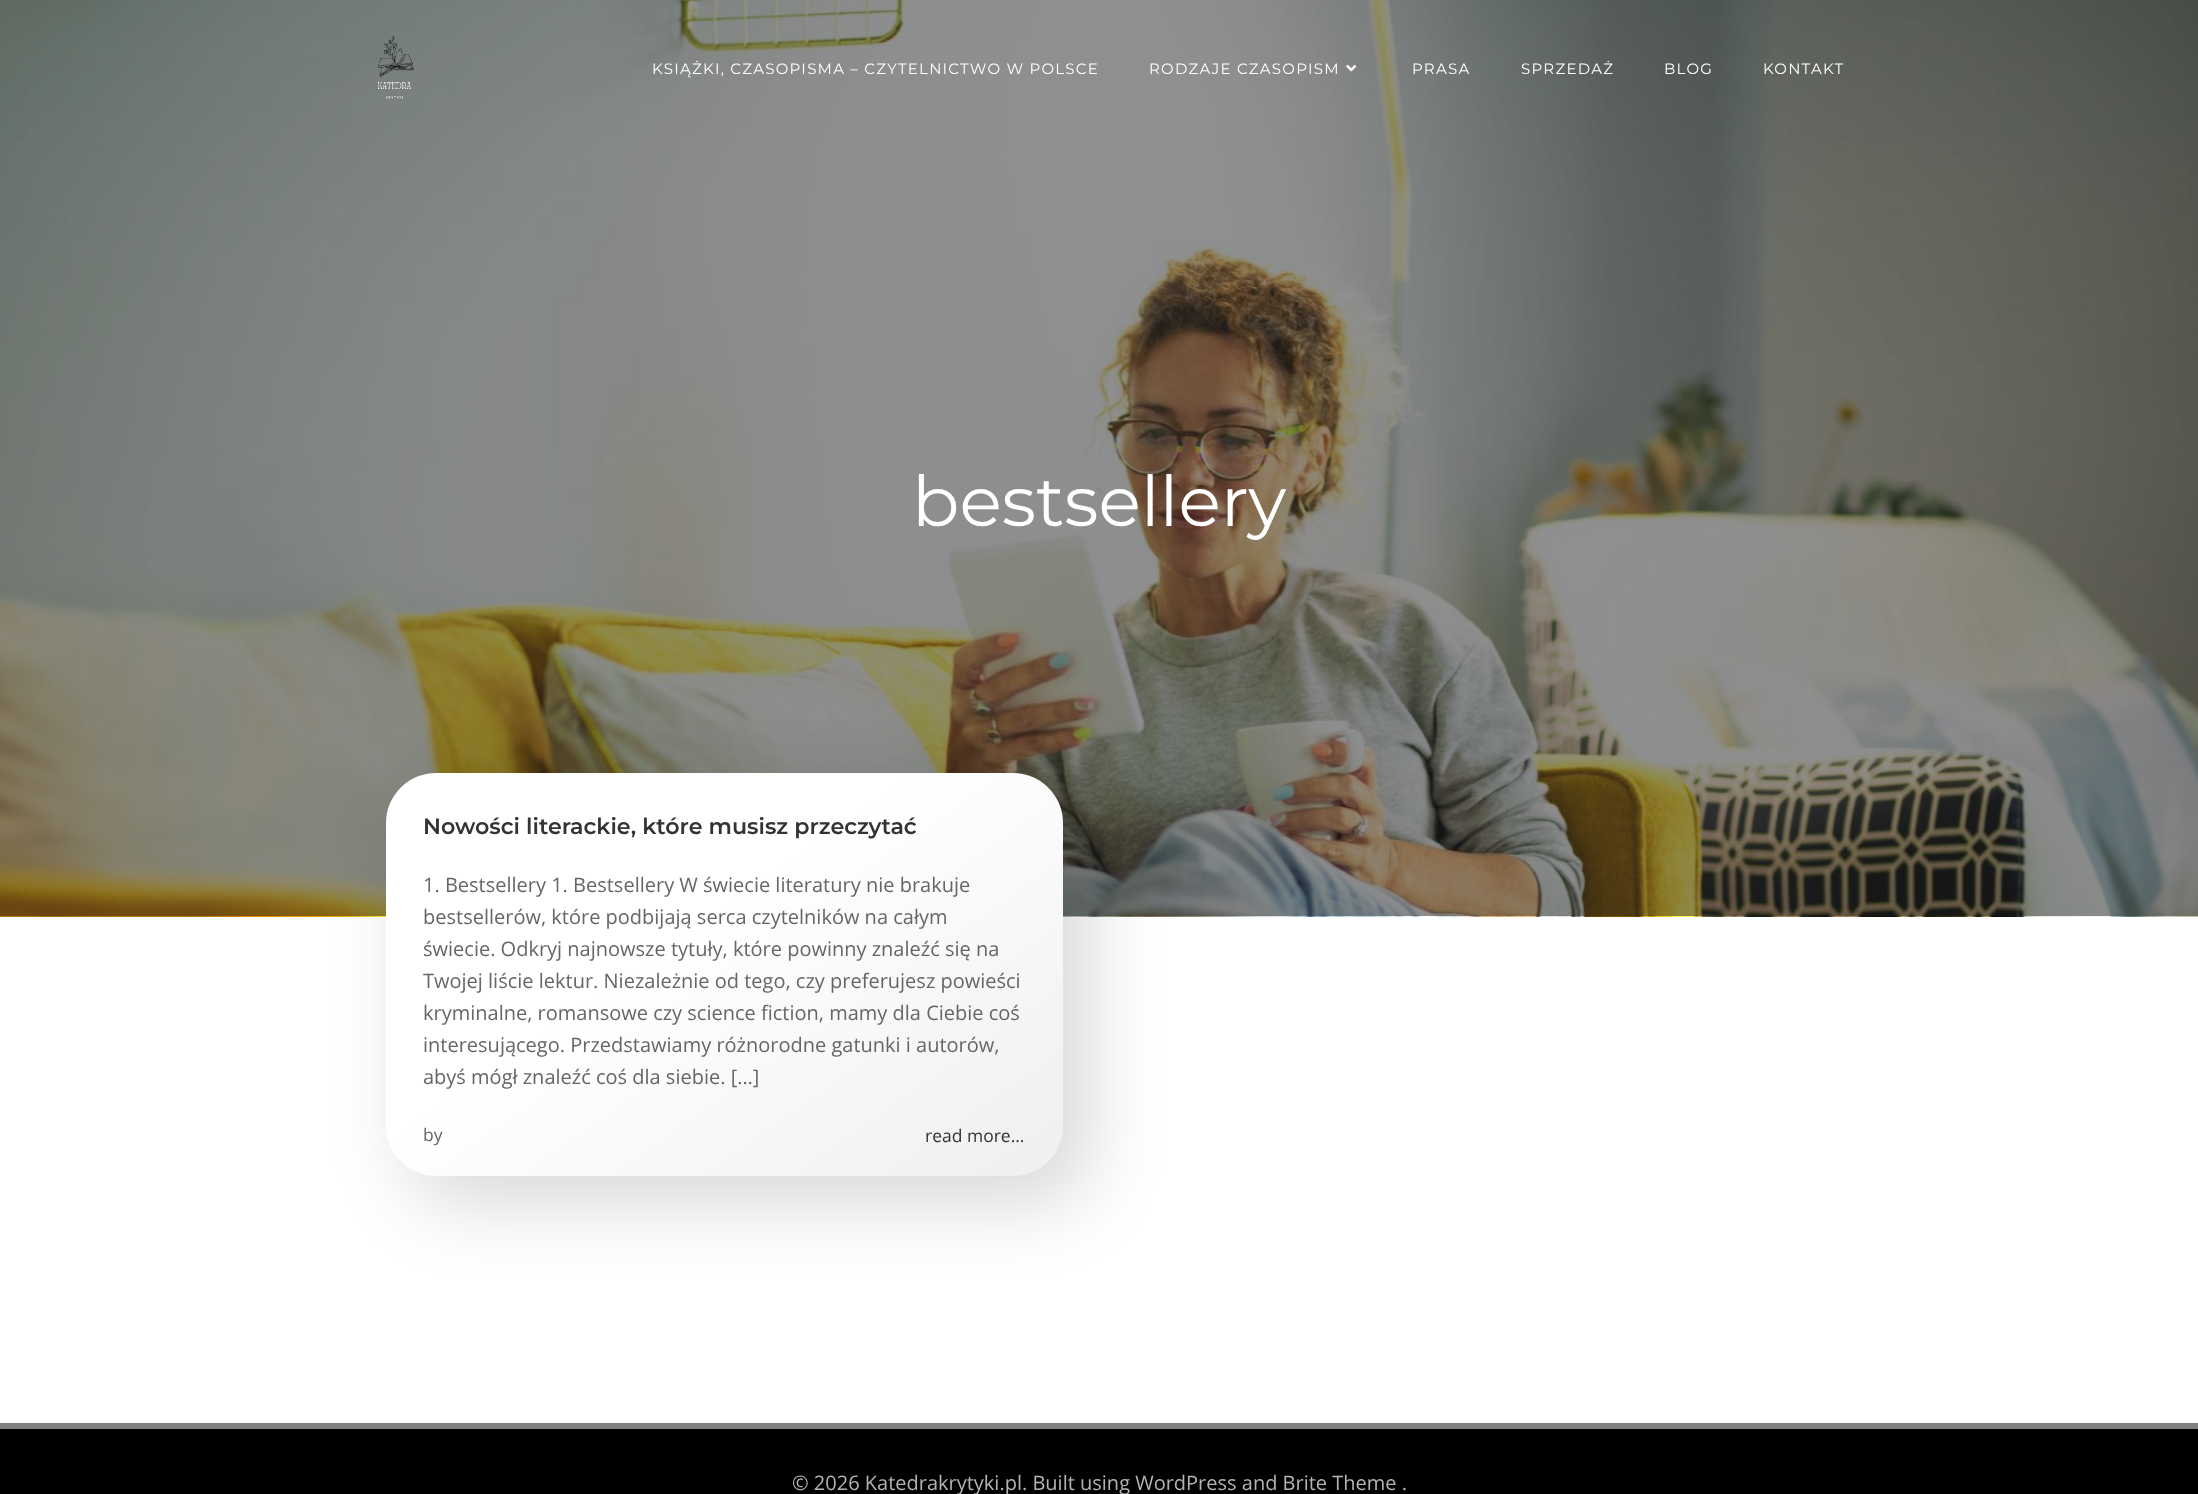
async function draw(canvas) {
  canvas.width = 2198
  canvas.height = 1494
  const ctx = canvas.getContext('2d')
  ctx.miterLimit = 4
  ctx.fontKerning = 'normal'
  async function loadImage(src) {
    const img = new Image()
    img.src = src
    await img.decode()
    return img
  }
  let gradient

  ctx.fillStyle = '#fff'
  ctx.fillRect(0, 0, 2198, 1494)
  ctx.drawImage(await loadImage('image2.png'), 0, 0, 2198, 917)
  ctx.drawImage(await loadImage('image0.png'), 378, 36, 36, 63)
  ctx.letterSpacing = '1.25px'
  ctx.font = '15px Montserrat'
  ctx.fillText('KSIĄŻKI, CZASOPISMA – CZYTELNICTWO W POLSCE', 652, 74)
  ctx.fillText('RODZAJE CZASOPISM', 1149, 74)
  ctx.drawImage(await loadImage('image1.png'), 1346, 65, 11, 7)
  ctx.fillText('PRASA', 1412, 74)
  ctx.fillText('SPRZEDAŻ', 1521, 74)
  ctx.fillText('BLOG', 1664, 74)
  ctx.fillText('KONTAKT', 1763, 74)
  ctx.letterSpacing = '0px'
  ctx.font = '70px Montserrat'
  ctx.fillText('bestsellery', 912, 526)
  ctx.fillStyle = '#00000026'
  ctx.filter = 'blur(37.5px)'
  ctx.beginPath()
  ctx.roundRect(409, 795, 681, 409, 53)
  ctx.fill()
  ctx.filter = 'none'
  gradient = ctx.createLinearGradient(518, 680, 930, 1269)
  gradient.addColorStop(0.42, '#fff')
  gradient.addColorStop(1, '#efefef')
  ctx.fillStyle = gradient
  ctx.beginPath()
  ctx.roundRect(386, 773, 677, 403, 50)
  ctx.fill()
  ctx.font = '600 22.2px Montserrat'
  ctx.fillStyle = '#333'
  ctx.fillText('Nowości literackie, które musisz przeczytać', 423, 834)
  ctx.font = '20px Open Sans'
  ctx.fillStyle = '#666'
  ctx.fillText('1. Bestsellery 1. Bestsellery W świecie literatury nie brakuje', 423, 892)
  ctx.fillText('bestsellerów, które podbijają serca czytelników na całym', 423, 924)
  ctx.fillText('świecie. Odkryj najnowsze tytuły, które powinny znaleźć się na', 423, 956)
  ctx.fillText('Twojej liście lektur. Niezależnie od tego, czy preferujesz powieści', 423, 988)
  ctx.fillText('kryminalne, romansowe czy science fiction, mamy dla Ciebie coś', 423, 1020)
  ctx.fillText('interesującego. Przedstawiamy różnorodne gatunki i autorów,', 423, 1052)
  ctx.fillText('abyś mógł znaleźć coś dla siebie. […]', 423, 1084)
  ctx.font = '17.5px Open Sans'
  ctx.fillText('by', 423, 1141)
  ctx.fillStyle = '#333'
  ctx.fillText('read more...', 925, 1142)
  ctx.fillStyle = '#000'
  ctx.fillRect(0, 1429, 2198, 65)
  ctx.fillStyle = '#808080'
  ctx.fillRect(0, 1423, 2198, 6)
  ctx.font = '20px Open Sans'
  ctx.fillStyle = '#b3b3b3'
  ctx.fillText('© 2026 Katedrakrytyki.pl. Built using WordPress and Brite Theme .', 792, 1490)
}

draw(document.querySelector('canvas'))
